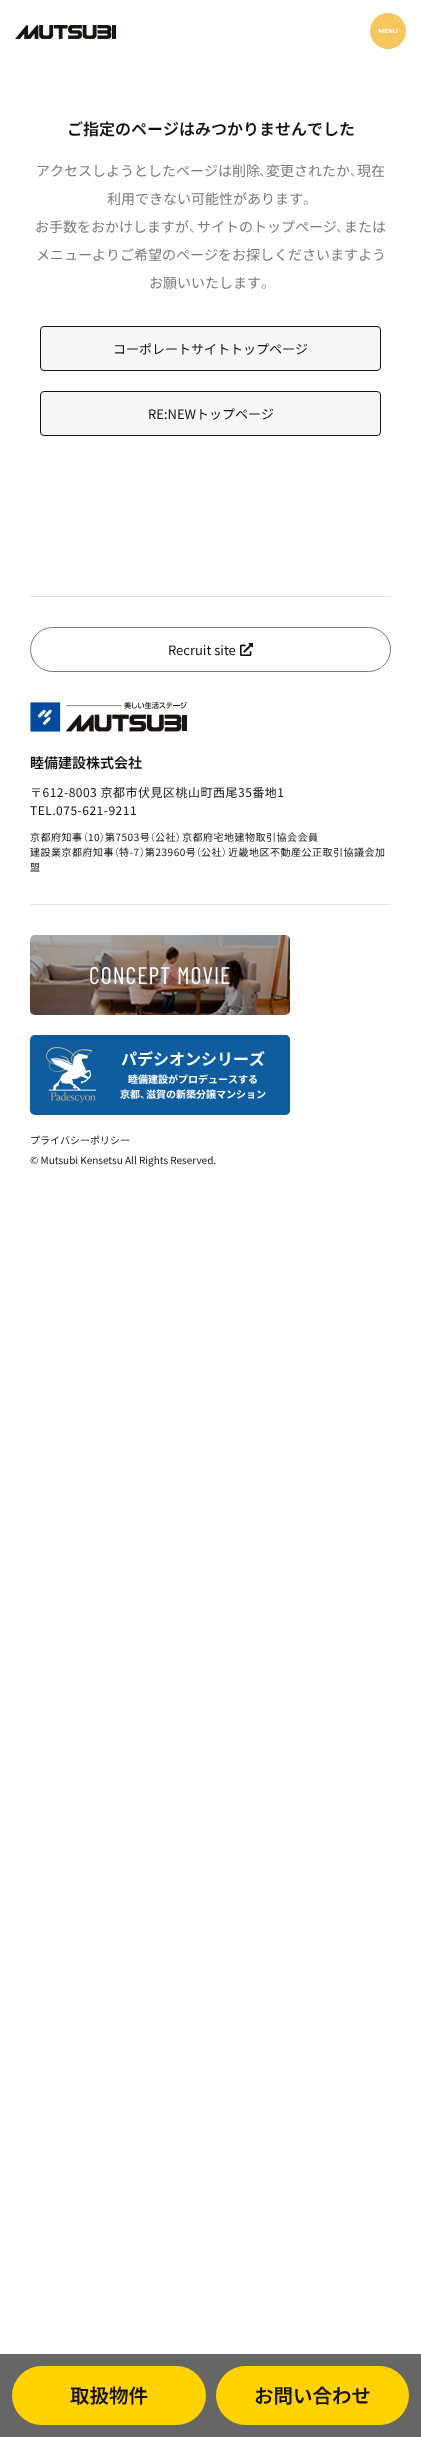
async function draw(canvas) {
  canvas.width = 421
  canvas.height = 2437
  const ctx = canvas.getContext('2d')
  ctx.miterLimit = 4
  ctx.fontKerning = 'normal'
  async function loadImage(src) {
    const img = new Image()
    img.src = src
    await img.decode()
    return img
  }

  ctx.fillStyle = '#fff'
  ctx.fillRect(0, 0, 421, 2437)
  ctx.font = '600 16px Noto Sans JP'
  ctx.fillStyle = '#121212'
  ctx.fillText('ご指定のページはみつかりませんでした', 67, 135)
  ctx.font = '14px Noto Sans JP'
  ctx.fillStyle = '#7a7a7a'
  ctx.fillText('アクセスしようとしたページは削除', 36, 176)
  ctx.font = '300 14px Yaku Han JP'
  ctx.fillText('、', 259, 176)
  ctx.font = '14px Noto Sans JP'
  ctx.fillText('変更されたか', 266, 176)
  ctx.font = '300 14px Yaku Han JP'
  ctx.fillText('、', 350, 176)
  ctx.font = '14px Noto Sans JP'
  ctx.fillText('現在', 357, 176)
  ctx.fillText('利用できない可能性があります', 107, 204)
  ctx.font = '300 14px Yaku Han JP'
  ctx.fillText('。', 303, 204)
  ctx.font = '14px Noto Sans JP'
  ctx.fillText('お手数をおかけしますが', 35, 232)
  ctx.font = '300 14px Yaku Han JP'
  ctx.fillText('、', 189, 232)
  ctx.font = '14px Noto Sans JP'
  ctx.fillText('サイトのトップページ', 197, 232)
  ctx.font = '300 14px Yaku Han JP'
  ctx.fillText('、', 336, 232)
  ctx.font = '14px Noto Sans JP'
  ctx.fillText('または', 344, 232)
  ctx.fillText('メニューよりご希望のページをお探しくださいますよう', 36, 260)
  ctx.fillText('お願いいたします', 149, 288)
  ctx.font = '300 14px Yaku Han JP'
  ctx.fillText('。', 261, 288)
  ctx.fillStyle = '#f7f7f7'
  ctx.beginPath()
  ctx.roundRect(40.5, 326.5, 340, 44, 3.5)
  ctx.fill()
  ctx.strokeStyle = '#121212'
  ctx.stroke()
  ctx.font = '13px Noto Sans JP'
  ctx.fillStyle = '#121212'
  ctx.fillText('コーポレートサイトトップページ', 113, 354)
  ctx.fillStyle = '#f7f7f7'
  ctx.beginPath()
  ctx.roundRect(40.5, 391.5, 340, 44, 3.5)
  ctx.fill()
  ctx.stroke()
  ctx.fillStyle = '#121212'
  ctx.fillText('RE:NEWトップページ', 148, 419)
  ctx.fillStyle = '#e3e3e3'
  ctx.fillRect(30, 596, 361, 1)
  ctx.beginPath()
  ctx.roundRect(30.5, 627.5, 360, 44, 22)
  ctx.strokeStyle = '#7a7a7a'
  ctx.stroke()
  ctx.fillStyle = '#121212'
  ctx.fillText('Recruit site', 168, 655)
  ctx.drawImage(await loadImage('image0.png'), 240, 643, 13, 13)
  ctx.drawImage(await loadImage('image1.png'), 30, 702, 157, 30)
  ctx.font = '600 14px Noto Sans JP'
  ctx.fillText('睦備建設株式会社', 30, 768)
  ctx.letterSpacing = '0.5px'
  ctx.font = '12px Noto Sans JP'
  ctx.fillText('〒612-8003 京都市伏見区桃山町西尾35番地1', 30, 797)
  ctx.fillText('TEL.075-621-9211', 30, 815)
  ctx.font = '10px Noto Sans JP'
  ctx.fillText('京都府知事', 30, 841)
  ctx.font = '300 10px Yaku Han JP'
  ctx.fillText('（', 83, 841)
  ctx.font = '10px Noto Sans JP'
  ctx.fillText('10', 88, 841)
  ctx.font = '300 10px Yaku Han JP'
  ctx.fillText('）', 100, 841)
  ctx.font = '10px Noto Sans JP'
  ctx.fillText('第7503号', 105, 841)
  ctx.font = '300 10px Yaku Han JP'
  ctx.fillText('（', 150, 841)
  ctx.font = '10px Noto Sans JP'
  ctx.fillText('公社', 155, 841)
  ctx.font = '300 10px Yaku Han JP'
  ctx.fillText('）', 176, 841)
  ctx.font = '10px Noto Sans JP'
  ctx.fillText('京都府宅地建物取引協会会員', 182, 841)
  ctx.fillText('建設業京都府知事', 30, 856)
  ctx.font = '300 10px Yaku Han JP'
  ctx.fillText('（', 114, 856)
  ctx.font = '10px Noto Sans JP'
  ctx.fillText('特-7', 119, 856)
  ctx.font = '300 10px Yaku Han JP'
  ctx.fillText('）', 140, 856)
  ctx.font = '10px Noto Sans JP'
  ctx.fillText('第23960号', 145, 856)
  ctx.font = '300 10px Yaku Han JP'
  ctx.fillText('（', 196, 856)
  ctx.font = '10px Noto Sans JP'
  ctx.fillText('公社', 201, 856)
  ctx.font = '300 10px Yaku Han JP'
  ctx.fillText('）', 222, 856)
  ctx.font = '10px Noto Sans JP'
  ctx.fillText('近畿地区不動産公正取引協議会加', 228, 856)
  ctx.fillText('盟', 30, 871)
  ctx.fillStyle = '#e3e3e3'
  ctx.fillRect(30, 904, 361, 1)
  ctx.drawImage(await loadImage('image2.png'), 30, 935, 260, 80)
  ctx.fillStyle = '#00000054'
  ctx.beginPath()
  ctx.roundRect(30, 935, 260, 80, 5)
  ctx.fill()
  ctx.letterSpacing = '1px'
  ctx.font = '24px Barlow Condensed'
  ctx.fillStyle = '#fff'
  ctx.fillText('CONCEPT MOVIE', 89, 984)
  ctx.fillStyle = '#0f5c9e'
  ctx.beginPath()
  ctx.roundRect(30, 1035, 260, 80, 5)
  ctx.fill()
  ctx.drawImage(await loadImage('image3.png'), 46, 1047, 50, 56)
  ctx.beginPath()
  ctx.roundRect(96, 1035, 194, 80, [0, 5, 5, 0])
  ctx.fill()
  ctx.letterSpacing = '0px'
  ctx.font = 'bold 16px Noto Sans JP'
  ctx.fillStyle = '#fff'
  ctx.fillText('パデシオンシリーズ', 121, 1065)
  ctx.font = 'bold 10px Noto Sans JP'
  ctx.fillText('睦備建設がプロデュースする', 128, 1083)
  ctx.fillText('京都', 120, 1098)
  ctx.font = '500 10px Yaku Han JP'
  ctx.fillText('、', 140, 1098)
  ctx.font = 'bold 10px Noto Sans JP'
  ctx.fillText('滋賀の新築分譲マンション', 146, 1098)
  ctx.font = '10px Noto Sans JP'
  ctx.fillStyle = '#121212'
  ctx.fillText('プライバシーポリシー', 30, 1144)
  ctx.fillText('© Mutsubi Kensetsu All Rights Reserved.', 30, 1164)
  ctx.drawImage(await loadImage('image4.png'), 15, 25, 101, 14)
  ctx.drawImage(await loadImage('image5.png'), 370, 13, 36, 36)
  ctx.fillStyle = '#666'
  ctx.fillRect(0, 2354, 421, 83)
  ctx.fillStyle = '#ffd200'
  ctx.beginPath()
  ctx.roundRect(12, 2366, 194, 59, 29.5)
  ctx.fill()
  ctx.font = '600 19.5px Noto Sans JP'
  ctx.fillStyle = '#121212'
  ctx.fillText('取扱物件', 70, 2403)
  ctx.fillStyle = '#ffd200'
  ctx.beginPath()
  ctx.roundRect(216, 2366, 193, 59, 29.5)
  ctx.fill()
  ctx.fillStyle = '#121212'
  ctx.fillText('お問い合わせ', 254, 2403)
}

draw(document.querySelector('canvas'))
